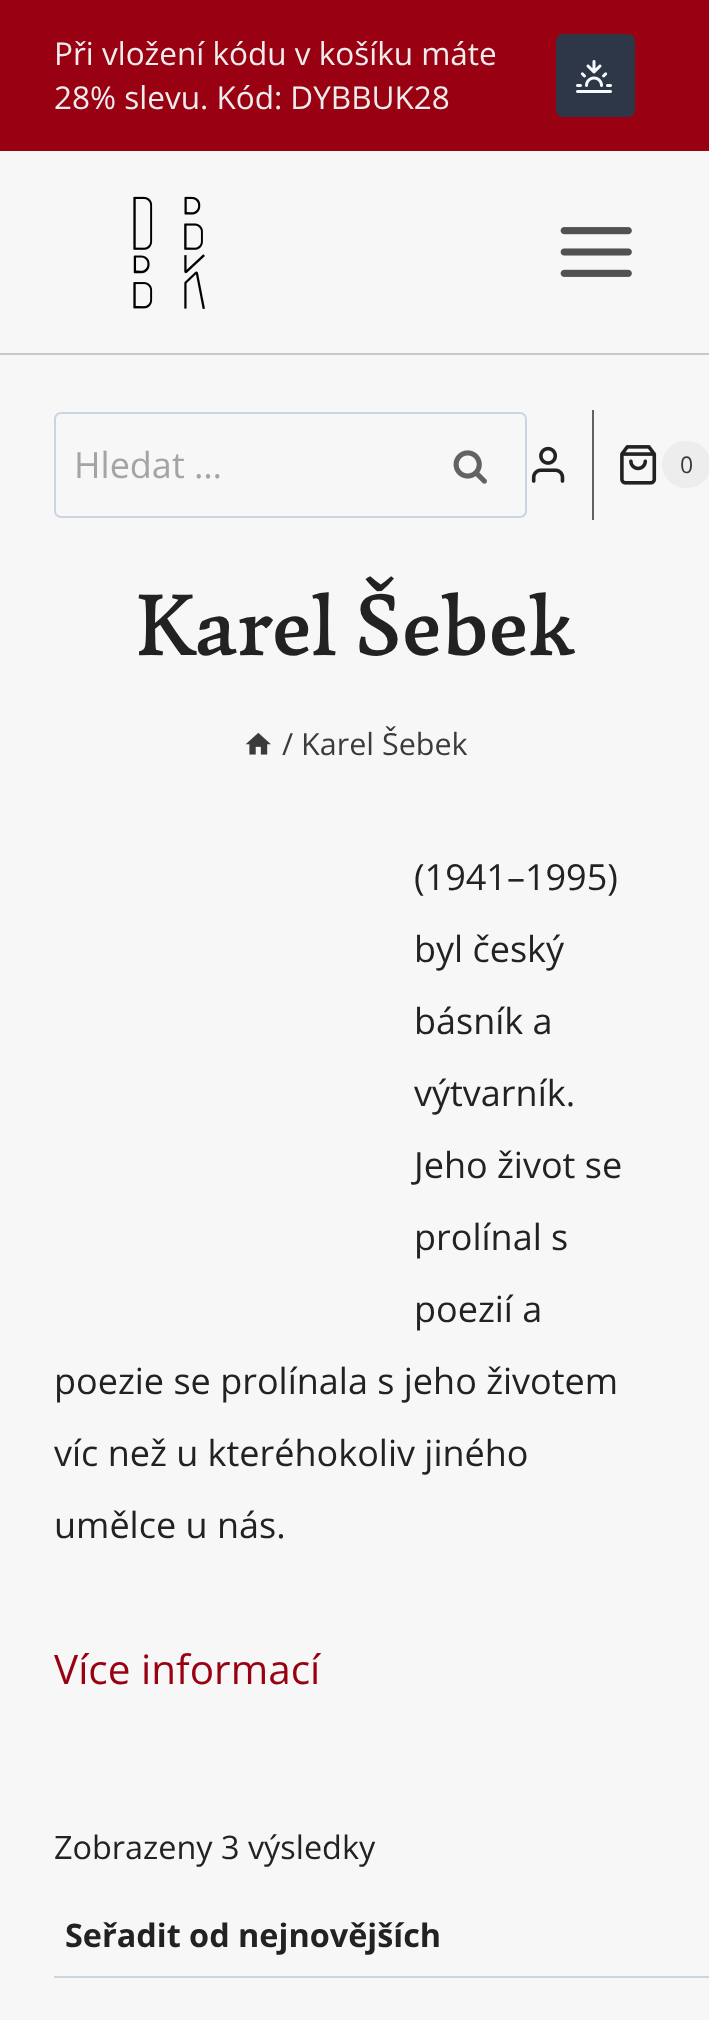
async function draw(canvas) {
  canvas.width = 709
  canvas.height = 2020
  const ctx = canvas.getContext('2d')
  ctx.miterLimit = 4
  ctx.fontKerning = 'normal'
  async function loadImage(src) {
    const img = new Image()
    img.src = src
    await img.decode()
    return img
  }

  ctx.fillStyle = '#f7f7f7'
  ctx.fillRect(0, 0, 709, 2020)
  ctx.fillStyle = '#901'
  ctx.fillRect(0, 0, 709, 151)
  ctx.font = '31.5px Open Sans'
  ctx.fillStyle = '#ededed'
  ctx.fillText('Při vložení kódu v košíku máte', 54, 65)
  ctx.fillText('28% slevu. Kód: DYBBUK28', 54, 109)
  ctx.fillStyle = '#2d3748'
  ctx.beginPath()
  ctx.roundRect(556, 34, 79, 83, 7)
  ctx.fill()
  ctx.drawImage(await loadImage('image0.png'), 576, 60, 36, 33)
  ctx.fillStyle = '#c5c9cd'
  ctx.fillRect(0, 353, 709, 2)
  ctx.drawImage(await loadImage('image1.png'), 133, 196, 72, 113)
  ctx.drawImage(await loadImage('image2.png'), 560, 227, 72, 50)
  ctx.beginPath()
  ctx.roundRect(55, 413, 471, 104, 6)
  ctx.strokeStyle = '#cbd5e0'
  ctx.lineWidth = 2
  ctx.stroke()
  ctx.font = '36px Open Sans'
  ctx.fillStyle = '#a4a4a4'
  ctx.fillText('Hledat …', 74, 478)
  ctx.drawImage(await loadImage('image3.png'), 453, 450, 34, 34)
  ctx.drawImage(await loadImage('image4.png'), 531, 446, 34, 37)
  ctx.fillStyle = '#626262'
  ctx.fillRect(592, 410, 2, 110)
  ctx.drawImage(await loadImage('image5.png'), 620, 445, 37, 40)
  ctx.fillStyle = '#ededed'
  ctx.beginPath()
  ctx.roundRect(662, 441, 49, 47, 23.5)
  ctx.fill()
  ctx.font = '23px Open Sans'
  ctx.fillStyle = '#3b3b3b'
  ctx.fillText('0', 680, 473)
  ctx.font = '500 90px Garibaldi'
  ctx.fillStyle = '#222'
  ctx.fillText('Karel Šebek', 136, 655)
  ctx.drawImage(await loadImage('image6.png'), 245, 732, 26, 23)
  ctx.font = '30.5px Open Sans'
  ctx.fillStyle = '#3b3b3b'
  ctx.fillText('/ Karel Šebek', 282, 755)
  ctx.font = '36px Open Sans'
  ctx.fillStyle = '#222'
  ctx.fillText('(1941–1995)', 414, 890)
  ctx.fillText('byl český', 414, 962)
  ctx.fillText('básník a', 414, 1034)
  ctx.fillText('výtvarník.', 414, 1106)
  ctx.fillText('Jeho život se', 414, 1178)
  ctx.fillText('prolínal s', 414, 1250)
  ctx.fillText('poezií a', 414, 1322)
  ctx.fillText('poezie se prolínala s jeho životem', 54, 1394)
  ctx.fillText('víc než u kteréhokoliv jiného', 54, 1466)
  ctx.fillText('umělce u nás.', 54, 1538)
  ctx.font = '40.5px Open Sans'
  ctx.fillStyle = '#901'
  ctx.fillText('Více informací', 54, 1684)
  ctx.font = '32.4px Open Sans'
  ctx.fillStyle = '#222'
  ctx.fillText('Zobrazeny 3 výsledky', 54, 1859)
  ctx.fillStyle = '#cbd5e0'
  ctx.fillRect(54, 1976, 655, 2)
  ctx.font = 'bold 32.4px Open Sans'
  ctx.fillStyle = '#222'
  ctx.fillText('Seřadit od nejnovějších', 65, 1947)
}

draw(document.querySelector('canvas'))
